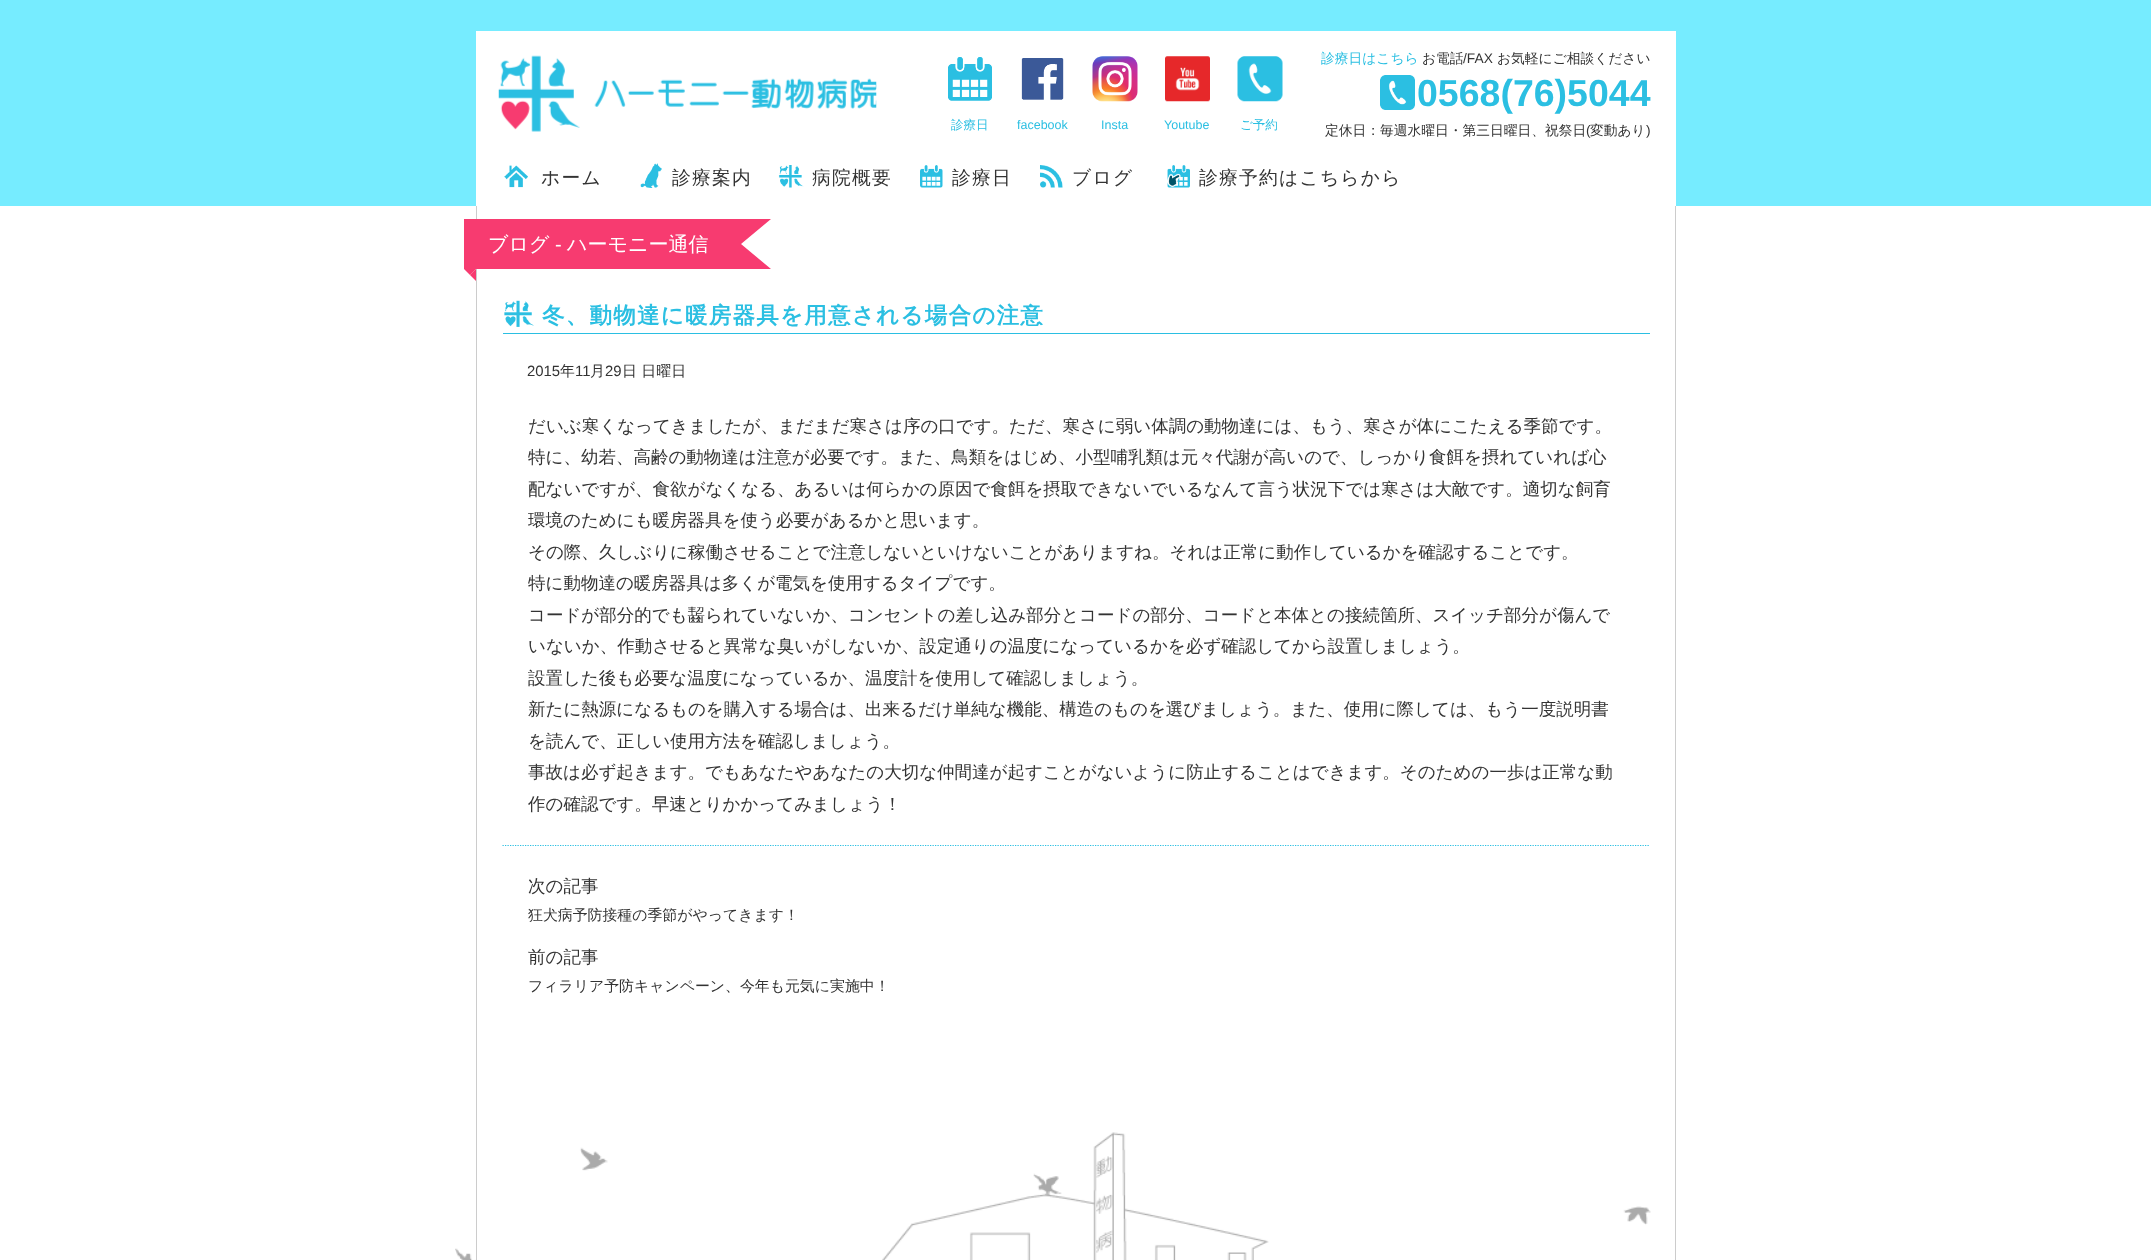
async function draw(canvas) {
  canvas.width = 2151
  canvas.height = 1260
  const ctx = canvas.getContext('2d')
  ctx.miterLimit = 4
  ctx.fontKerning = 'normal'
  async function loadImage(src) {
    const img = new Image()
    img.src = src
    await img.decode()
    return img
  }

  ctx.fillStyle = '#fff'
  ctx.fillRect(0, 0, 2151, 1260)
  ctx.fillStyle = '#76ecff'
  ctx.fillRect(0, 0, 2151, 206)
  ctx.fillStyle = '#fff'
  ctx.fillRect(476, 31, 1200, 175)
  ctx.drawImage(await loadImage('image0.png'), 498, 55, 379, 77)
  ctx.font = '500 13.75px WenQuanYi Zen Hei'
  ctx.fillStyle = '#2bbfe2'
  ctx.fillText('診療日はこちら', 1321, 63)
  ctx.fillStyle = '#333'
  ctx.fillText('お電話', 1422, 63)
  ctx.font = '13.75px Liberation Sans'
  ctx.fillText('/FAX', 1463, 63)
  ctx.font = '500 13.75px WenQuanYi Zen Hei'
  ctx.fillText('お気軽にご相談ください', 1497, 63)
  ctx.drawImage(await loadImage('image1.png'), 1380, 75, 35, 35)
  ctx.font = 'bold 37.5px Liberation Sans'
  ctx.fillStyle = '#2bbfe2'
  ctx.fillText('0568(76)5044', 1417, 106)
  ctx.drawImage(await loadImage('image2.png'), 948, 57, 44, 44)
  ctx.font = '500 12.5px WenQuanYi Zen Hei'
  ctx.fillText('診療日', 951, 129)
  ctx.drawImage(await loadImage('image3.png'), 1021, 58, 43, 42)
  ctx.font = '12.5px Liberation Sans'
  ctx.fillText('facebook', 1017, 129)
  ctx.drawImage(await loadImage('image4.png'), 1092, 56, 46, 46)
  ctx.fillText('Insta', 1101, 129)
  ctx.drawImage(await loadImage('image5.png'), 1165, 56, 45, 46)
  ctx.fillText('Youtube', 1164, 129)
  ctx.drawImage(await loadImage('image6.png'), 1237, 56, 46, 46)
  ctx.font = '500 12.5px WenQuanYi Zen Hei'
  ctx.fillText('ご予約', 1240, 129)
  ctx.font = '500 13.75px WenQuanYi Zen Hei'
  ctx.fillStyle = '#333'
  ctx.fillText('定休日：毎週水曜日・第三日曜日、祝祭日', 1325, 135)
  ctx.font = '13.75px Liberation Sans'
  ctx.fillText('(', 1586, 135)
  ctx.font = '500 13.75px WenQuanYi Zen Hei'
  ctx.fillText('変動あり', 1590, 135)
  ctx.font = '13.75px Liberation Sans'
  ctx.fillText(')', 1646, 135)
  ctx.drawImage(await loadImage('image7.png'), 504, 165, 24, 23)
  ctx.letterSpacing = '1.25px'
  ctx.font = '500 18.75px WenQuanYi Zen Hei'
  ctx.fillText('ホーム', 541, 184)
  ctx.drawImage(await loadImage('image8.png'), 640, 163, 22, 25)
  ctx.fillText('診療案内', 672, 184)
  ctx.drawImage(await loadImage('image9.png'), 778, 165, 26, 23)
  ctx.fillText('病院概要', 812, 184)
  ctx.drawImage(await loadImage('image10.png'), 920, 165, 23, 23)
  ctx.fillText('診療日', 952, 184)
  ctx.drawImage(await loadImage('image11.png'), 1040, 165, 23, 23)
  ctx.fillText('ブログ', 1072, 184)
  ctx.drawImage(await loadImage('image12.png'), 1167, 165, 23, 23)
  ctx.fillText('診療予約はこちらから', 1199, 184)
  ctx.drawImage(await loadImage('image13.png'), 455, 1132, 1196, 128)
  ctx.fillStyle = '#ccc'
  ctx.fillRect(476, 206, 1, 1054)
  ctx.fillStyle = '#f73b70'
  ctx.fillRect(464, 219, 247, 50)
  ctx.letterSpacing = '0px'
  ctx.font = '500 20px WenQuanYi Zen Hei'
  ctx.fillStyle = '#fff'
  ctx.fillText('ブログ', 488, 251)
  ctx.font = '20px Liberation Sans'
  ctx.fillText('-', 555, 251)
  ctx.font = '500 20px WenQuanYi Zen Hei'
  ctx.fillText('ハーモニー通信', 567, 251)
  ctx.fillStyle = '#f73b70'
  ctx.beginPath()
  ctx.moveTo(711, 219)
  ctx.lineTo(771, 219)
  ctx.lineTo(741, 244)
  ctx.closePath()
  ctx.moveTo(771, 269)
  ctx.lineTo(711, 269)
  ctx.lineTo(741, 244)
  ctx.closePath()
  ctx.fill()
  ctx.fillRect(711, 219, 30, 50)
  ctx.beginPath()
  ctx.moveTo(464, 269)
  ctx.lineTo(476, 269)
  ctx.lineTo(470, 275)
  ctx.closePath()
  ctx.fill()
  ctx.beginPath()
  ctx.moveTo(476, 269)
  ctx.lineTo(476, 281)
  ctx.lineTo(470, 275)
  ctx.closePath()
  ctx.fill()
  ctx.fillStyle = '#ccc'
  ctx.fillRect(1675, 206, 1, 1054)
  ctx.drawImage(await loadImage('image14.png'), 504, 300, 30, 27)
  ctx.fillStyle = '#2bbfe2'
  ctx.fillRect(503, 333, 1147, 1)
  ctx.letterSpacing = '1.25px'
  ctx.font = 'bold 22.5px WenQuanYi Zen Hei'
  ctx.fillText('冬、動物達に暖房器具を用意される場合の注意', 542, 323)
  ctx.letterSpacing = '0px'
  ctx.font = '14.9px Liberation Sans'
  ctx.fillStyle = '#333'
  ctx.fillText('2015', 527, 376)
  ctx.font = '500 14.9px WenQuanYi Zen Hei'
  ctx.fillText('年', 560, 376)
  ctx.font = '14.9px Liberation Sans'
  ctx.fillText('11', 575, 376)
  ctx.font = '500 14.9px WenQuanYi Zen Hei'
  ctx.fillText('月', 590, 376)
  ctx.font = '14.9px Liberation Sans'
  ctx.fillText('29', 605, 376)
  ctx.font = '500 14.9px WenQuanYi Zen Hei'
  ctx.fillText('日 日曜日', 622, 376)
  ctx.beginPath()
  ctx.moveTo(502.5, 845.5)
  ctx.lineTo(1650, 845.5)
  ctx.strokeStyle = '#2bbfe2'
  ctx.lineWidth = 1.2
  ctx.setLineDash([1.25, 1.25])
  ctx.stroke()
  ctx.font = '500 17.5px WenQuanYi Zen Hei'
  ctx.fillText('だいぶ寒くなってきましたが、まだまだ寒さは序の口です。ただ、寒さに弱い体調の動物達には、もう、寒さが体にこたえる季節です。', 528, 432)
  ctx.fillText('特に、幼若、高齢の動物達は注意が必要です。また、鳥類をはじめ、小型哺乳類は元々代謝が高いので、しっかり食餌を摂れていれば心', 528, 463)
  ctx.fillText('配ないですが、食欲がなくなる、あるいは何らかの原因で食餌を摂取できないでいるなんて言う状況下では寒さは大敵です。適切な飼育', 528, 495)
  ctx.fillText('環境のためにも暖房器具を使う必要があるかと思います。', 528, 526)
  ctx.fillText('その際、久しぶりに稼働させることで注意しないといけないことがありますね。それは正常に動作しているかを確認することです。', 528, 558)
  ctx.fillText('特に動物達の暖房器具は多くが電気を使用するタイプです。', 528, 589)
  ctx.fillText('コードが部分的でも齧られていないか、コンセントの差し込み部分とコードの部分、コードと本体との接続箇所、スイッチ部分が傷んで', 528, 621)
  ctx.fillText('いないか、作動させると異常な臭いがしないか、設定通りの温度になっているかを必ず確認してから設置しましょう。', 528, 652)
  ctx.fillText('設置した後も必要な温度になっているか、温度計を使用して確認しましょう。', 528, 684)
  ctx.fillText('新たに熱源になるものを購入する場合は、出来るだけ単純な機能、構造のものを選びましょう。また、使用に際しては、もう一度説明書', 528, 715)
  ctx.fillText('を読んで、正しい使用方法を確認しましょう。', 528, 747)
  ctx.fillText('事故は必ず起きます。でもあなたやあなたの大切な仲間達が起すことがないように防止することはできます。そのための一歩は正常な動', 528, 778)
  ctx.fillText('作の確認です。早速とりかかってみましょう！', 528, 810)
  ctx.fillText('次の記事', 528, 892)
  ctx.font = '500 14.9px WenQuanYi Zen Hei'
  ctx.fillText('狂犬病予防接種の季節がやってきます！', 528, 920)
  ctx.font = '500 17.5px WenQuanYi Zen Hei'
  ctx.fillText('前の記事', 528, 963)
  ctx.font = '500 14.9px WenQuanYi Zen Hei'
  ctx.fillText('フィラリア予防キャンペーン、今年も元気に実施中！', 528, 991)
}

draw(document.querySelector('canvas'))
